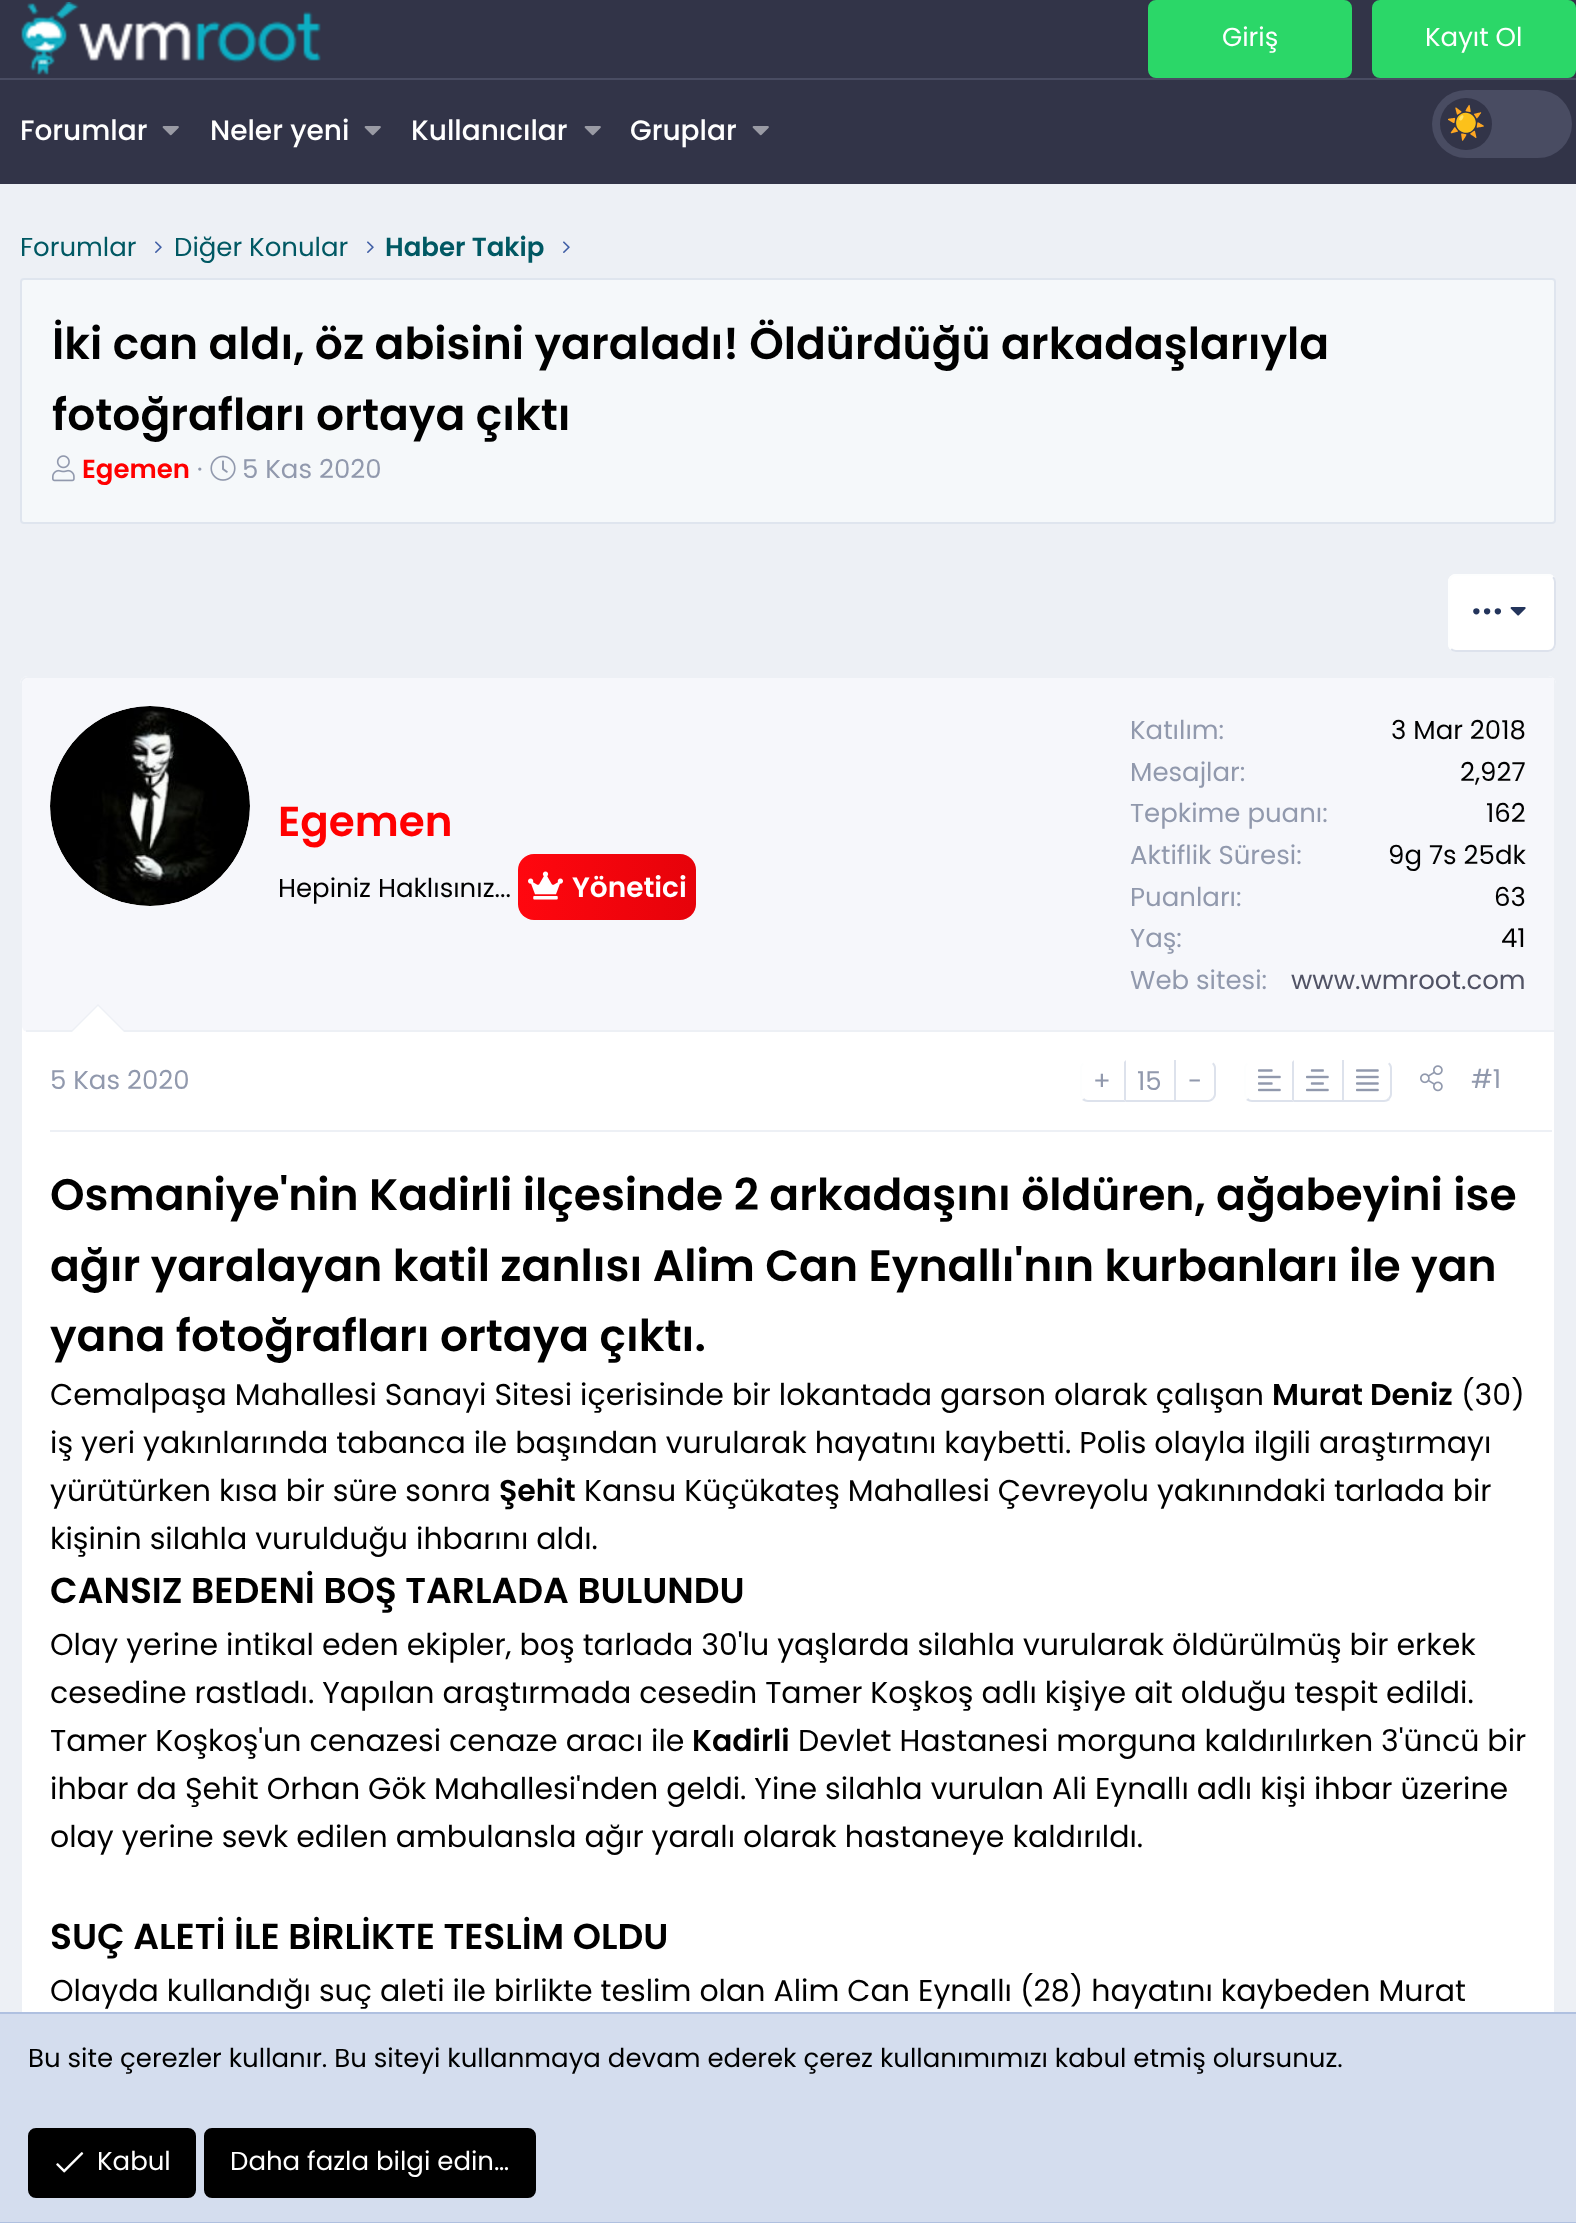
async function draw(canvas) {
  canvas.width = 1576
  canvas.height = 2223
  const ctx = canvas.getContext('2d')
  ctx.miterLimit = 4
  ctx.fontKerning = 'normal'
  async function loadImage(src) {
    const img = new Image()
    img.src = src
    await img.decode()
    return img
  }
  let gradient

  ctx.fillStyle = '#edf0f5'
  ctx.fillRect(0, 0, 1576, 2223)
  ctx.fillStyle = '#323448'
  ctx.fillRect(0, 0, 1576, 78)
  ctx.drawImage(await loadImage('image0.png'), 21, 2, 300, 73)
  ctx.fillStyle = '#2bd768'
  ctx.beginPath()
  ctx.roundRect(1149, 1, 202, 76, 7)
  ctx.fill()
  ctx.strokeStyle = '#2bd768'
  ctx.lineWidth = 2
  ctx.stroke()
  ctx.font = '26px Poppins'
  ctx.fillStyle = '#fff'
  ctx.fillText('Giriş', 1222, 46)
  ctx.fillStyle = '#2bd768'
  ctx.beginPath()
  ctx.roundRect(1373, 1, 202, 76, 7)
  ctx.fill()
  ctx.stroke()
  ctx.fillStyle = '#fff'
  ctx.fillText('Kayıt Ol', 1425, 46)
  ctx.fillStyle = '#323448'
  ctx.fillRect(0, 80, 1576, 104)
  ctx.fillStyle = '#494c62'
  ctx.fillRect(0, 78, 1576, 2)
  ctx.font = '500 28px Poppins'
  ctx.fillStyle = '#fff'
  ctx.fillText('Forumlar', 20, 140)
  ctx.drawImage(await loadImage('image1.png'), 162, 126, 17, 10)
  ctx.fillText('Neler yeni', 210, 140)
  ctx.drawImage(await loadImage('image1.png'), 364, 126, 17, 10)
  ctx.fillText('Kullanıcılar', 411, 140)
  ctx.drawImage(await loadImage('image1.png'), 584, 126, 17, 10)
  ctx.fillText('Gruplar', 630, 140)
  ctx.drawImage(await loadImage('image1.png'), 752, 126, 17, 10)
  ctx.fillStyle = '#494c62'
  ctx.beginPath()
  ctx.roundRect(1432, 90, 140, 68, 34)
  ctx.fill()
  ctx.fillStyle = '#323448'
  ctx.beginPath()
  ctx.arc(1466, 124, 26, 0, 2 * Math.PI)
  ctx.fill()
  ctx.font = '32px Noto Color Emoji'
  ctx.fillStyle = '#ffc600'
  ctx.fillText('☀️', 1446, 134)
  ctx.font = '26px Poppins'
  ctx.fillStyle = '#005863'
  ctx.fillText('Forumlar', 20, 256)
  ctx.drawImage(await loadImage('image2.png'), 155, 241, 7, 12)
  ctx.fillText('Diğer Konular', 174, 256)
  ctx.drawImage(await loadImage('image2.png'), 367, 241, 7, 12)
  ctx.font = '600 26px Poppins'
  ctx.fillText('Haber Takip', 385, 256)
  ctx.drawImage(await loadImage('image2.png'), 563, 241, 7, 12)
  ctx.fillStyle = '#f5f8fa'
  ctx.beginPath()
  ctx.roundRect(21, 279, 1534, 244, 3)
  ctx.fill()
  ctx.strokeStyle = '#dfe5ee'
  ctx.stroke()
  ctx.font = '600 44px Poppins'
  ctx.fillStyle = '#000'
  ctx.fillText('İki can aldı, öz abisini yaraladı! Öldürdüğü arkadaşlarıyla', 52, 359)
  ctx.fillText('fotoğrafları ortaya çıktı', 52, 430)
  ctx.drawImage(await loadImage('image3.png'), 52, 455, 23, 27)
  ctx.font = '600 26px Poppins'
  ctx.fillStyle = '#f00'
  ctx.fillText('Egemen', 82, 478)
  ctx.font = '26px Poppins'
  ctx.fillStyle = '#9199ad'
  ctx.fillText('·', 197, 478)
  ctx.drawImage(await loadImage('image4.png'), 210, 455, 26, 26)
  ctx.fillText('5 Kas 2020', 242, 478)
  ctx.fillStyle = '#fff'
  ctx.beginPath()
  ctx.roundRect(1448, 574, 108, 78, 8)
  ctx.fill()
  ctx.beginPath()
  ctx.moveTo(1553, 577)
  ctx.bezierCurveTo(1554.5, 578.5, 1555, 580, 1555, 582)
  ctx.lineTo(1555, 644)
  ctx.bezierCurveTo(1555, 646, 1554.5, 647.5, 1553, 649)
  ctx.bezierCurveTo(1551.5, 650.5, 1550, 651, 1548, 651)
  ctx.lineTo(1456, 651)
  ctx.bezierCurveTo(1454, 651, 1452.5, 650.5, 1451, 649)
  ctx.strokeStyle = '#dde2ec'
  ctx.stroke()
  ctx.beginPath()
  ctx.moveTo(1451, 649)
  ctx.bezierCurveTo(1449.5, 647.5, 1449, 646, 1449, 644)
  ctx.lineTo(1449, 582)
  ctx.bezierCurveTo(1449, 580, 1449.5, 578.5, 1451, 577)
  ctx.bezierCurveTo(1452.5, 575.5, 1454, 575, 1456, 575)
  ctx.lineTo(1548, 575)
  ctx.bezierCurveTo(1550, 575, 1551.5, 575.5, 1553, 577)
  ctx.strokeStyle = '#fdfefe'
  ctx.stroke()
  ctx.fillStyle = '#23345b'
  ctx.fillText('•••', 1471, 620)
  ctx.drawImage(await loadImage('image5.png'), 1510, 607, 16, 9)
  ctx.fillStyle = '#fff'
  ctx.beginPath()
  ctx.roundRect(20, 676, 1536, 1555, 8)
  ctx.fill()
  ctx.beginPath()
  ctx.moveTo(23, 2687)
  ctx.bezierCurveTo(21.5, 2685.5, 21, 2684, 21, 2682)
  ctx.lineTo(21, 684)
  ctx.bezierCurveTo(21, 682, 21.5, 680.5, 23, 679)
  ctx.bezierCurveTo(24.5, 677.5, 26, 677, 28, 677)
  ctx.lineTo(1548, 677)
  ctx.bezierCurveTo(1550, 677, 1551.5, 677.5, 1553, 679)
  ctx.bezierCurveTo(1554.5, 680.5, 1555, 682, 1555, 684)
  ctx.lineTo(1555, 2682)
  ctx.bezierCurveTo(1555, 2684, 1554.5, 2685.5, 1553, 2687)
  ctx.strokeStyle = '#edf0f5'
  ctx.stroke()
  ctx.fillStyle = '#f6f7fb'
  ctx.beginPath()
  ctx.roundRect(22, 678, 1532, 354, [6, 0, 0, 6])
  ctx.fill()
  ctx.fillStyle = '#edf0f5'
  ctx.fillRect(26, 1030, 1528, 2)
  ctx.fillStyle = '#fff'
  ctx.beginPath()
  ctx.arc(150, 806, 100, 0, 2 * Math.PI)
  ctx.fill()
  ctx.drawImage(await loadImage('image6.png'), 50, 706, 200, 200)
  ctx.font = '600 42px Poppins'
  ctx.fillStyle = '#f00'
  ctx.fillText('Egemen', 278, 836)
  ctx.font = '26px Poppins'
  ctx.fillStyle = '#000'
  ctx.fillText('Hepiniz Haklısınız...', 278, 897)
  gradient = ctx.createLinearGradient(518, 887, 696, 887)
  gradient.addColorStop(0, '#ff070f')
  gradient.addColorStop(1, '#e6020a')
  ctx.fillStyle = gradient
  ctx.beginPath()
  ctx.roundRect(518, 854, 178, 66, 16)
  ctx.fill()
  ctx.drawImage(await loadImage('image7.png'), 528, 871, 35, 29)
  ctx.font = '600 28px Poppins'
  ctx.fillStyle = '#fff'
  ctx.fillText('Yönetici', 572, 897)
  ctx.font = '26px Poppins'
  ctx.fillStyle = '#9199ad'
  ctx.fillText('Katılım:', 1130, 739)
  ctx.fillStyle = '#000'
  ctx.fillText('3 Mar 2018', 1391, 739)
  ctx.fillStyle = '#9199ad'
  ctx.fillText('Mesajlar:', 1130, 781)
  ctx.fillStyle = '#000'
  ctx.fillText('2,927', 1460, 781)
  ctx.fillStyle = '#9199ad'
  ctx.fillText('Tepkime puanı:', 1130, 822)
  ctx.fillStyle = '#000'
  ctx.fillText('162', 1486, 822)
  ctx.fillStyle = '#9199ad'
  ctx.fillText('Aktiflik Süresi:', 1130, 864)
  ctx.fillStyle = '#000'
  ctx.fillText('9g 7s 25dk', 1388, 864)
  ctx.fillStyle = '#9199ad'
  ctx.fillText('Puanları:', 1130, 906)
  ctx.fillStyle = '#000'
  ctx.fillText('63', 1494, 906)
  ctx.fillStyle = '#9199ad'
  ctx.fillText('Yaş:', 1130, 947)
  ctx.fillStyle = '#000'
  ctx.fillText('41', 1501, 947)
  ctx.fillStyle = '#9199ad'
  ctx.fillText('Web sitesi:', 1130, 989)
  ctx.fillStyle = '#515365'
  ctx.fillText('www.wmroot.com', 1291, 989)
  ctx.fillStyle = '#edf0f5'
  ctx.beginPath()
  ctx.moveTo(126, 1032)
  ctx.lineTo(70, 1032)
  ctx.lineTo(98, 1004)
  ctx.closePath()
  ctx.fill()
  ctx.fillStyle = '#fff'
  ctx.beginPath()
  ctx.moveTo(124, 1032)
  ctx.lineTo(72, 1032)
  ctx.lineTo(98, 1006)
  ctx.closePath()
  ctx.fill()
  ctx.fillStyle = '#edf0f5'
  ctx.fillRect(50, 1130, 1502, 2)
  ctx.fillStyle = '#9199ad'
  ctx.fillText('5 Kas 2020', 50, 1089)
  ctx.fillStyle = '#dde2ec'
  ctx.beginPath()
  ctx.moveTo(1126, 1060)
  ctx.lineTo(1124, 1062)
  ctx.lineTo(1124, 1100)
  ctx.lineTo(1126, 1102)
  ctx.closePath()
  ctx.fill()
  ctx.beginPath()
  ctx.moveTo(1126, 1102)
  ctx.lineTo(1124, 1100)
  ctx.lineTo(1088, 1100)
  ctx.bezierCurveTo(1086, 1100, 1085, 1099, 1084, 1098)
  ctx.lineTo(1082, 1100)
  ctx.bezierCurveTo(1084, 1101, 1086, 1102, 1088, 1102)
  ctx.closePath()
  ctx.fill()
  ctx.fillStyle = '#fdfefe'
  ctx.beginPath()
  ctx.moveTo(1080, 1068)
  ctx.lineTo(1080, 1094)
  ctx.bezierCurveTo(1080, 1096, 1081, 1098, 1082.5, 1099.5)
  ctx.lineTo(1084, 1098)
  ctx.bezierCurveTo(1083, 1097, 1082, 1095.5, 1082, 1094)
  ctx.lineTo(1082, 1068)
  ctx.bezierCurveTo(1082, 1066.5, 1083, 1065, 1084, 1064)
  ctx.lineTo(1082.5, 1062.5)
  ctx.bezierCurveTo(1081, 1064, 1080, 1066, 1080, 1068)
  ctx.closePath()
  ctx.fill()
  ctx.fillStyle = '#9199ad'
  ctx.fillText('+', 1093, 1090)
  ctx.fillStyle = '#dde2ec'
  ctx.fillRect(1174, 1060, 2, 42)
  ctx.fillRect(1126, 1100, 50, 2)
  ctx.fillStyle = '#9199ad'
  ctx.fillText('15', 1137, 1090)
  ctx.fillStyle = '#dde2ec'
  ctx.beginPath()
  ctx.moveTo(1212, 1098)
  ctx.bezierCurveTo(1213, 1097, 1214, 1095.5, 1214, 1094)
  ctx.lineTo(1214, 1068)
  ctx.bezierCurveTo(1214, 1066.5, 1213, 1065, 1212, 1064)
  ctx.lineTo(1213.5, 1062.5)
  ctx.bezierCurveTo(1215, 1064, 1216, 1066, 1216, 1068)
  ctx.lineTo(1216, 1094)
  ctx.bezierCurveTo(1216, 1096, 1215, 1098, 1213.5, 1099.5)
  ctx.closePath()
  ctx.fill()
  ctx.beginPath()
  ctx.moveTo(1176, 1100)
  ctx.lineTo(1176, 1102)
  ctx.lineTo(1208, 1102)
  ctx.bezierCurveTo(1210, 1102, 1212, 1101, 1213.5, 1099.5)
  ctx.lineTo(1212, 1098)
  ctx.bezierCurveTo(1211, 1099, 1209.5, 1100, 1208, 1100)
  ctx.closePath()
  ctx.fill()
  ctx.fillStyle = '#9199ad'
  ctx.fillText('-', 1188, 1090)
  ctx.fillStyle = '#dde2ec'
  ctx.beginPath()
  ctx.moveTo(1294, 1060)
  ctx.lineTo(1292, 1062)
  ctx.lineTo(1292, 1100)
  ctx.lineTo(1294, 1102)
  ctx.closePath()
  ctx.fill()
  ctx.beginPath()
  ctx.moveTo(1294, 1102)
  ctx.lineTo(1292, 1100)
  ctx.lineTo(1252, 1100)
  ctx.bezierCurveTo(1250, 1100, 1249, 1099, 1248, 1098)
  ctx.lineTo(1246, 1100)
  ctx.bezierCurveTo(1248, 1101, 1250, 1102, 1252, 1102)
  ctx.closePath()
  ctx.fill()
  ctx.fillStyle = '#fdfefe'
  ctx.beginPath()
  ctx.moveTo(1244, 1068)
  ctx.lineTo(1244, 1094)
  ctx.bezierCurveTo(1244, 1096, 1245, 1098, 1246.5, 1099.5)
  ctx.lineTo(1248, 1098)
  ctx.bezierCurveTo(1247, 1097, 1246, 1095.5, 1246, 1094)
  ctx.lineTo(1246, 1068)
  ctx.bezierCurveTo(1246, 1066.5, 1247, 1065, 1248, 1064)
  ctx.lineTo(1246.5, 1062.5)
  ctx.bezierCurveTo(1245, 1064, 1244, 1066, 1244, 1068)
  ctx.closePath()
  ctx.fill()
  ctx.drawImage(await loadImage('image8.png'), 1258, 1069, 23, 23)
  ctx.fillStyle = '#dde2ec'
  ctx.fillRect(1342, 1060, 2, 42)
  ctx.fillRect(1294, 1100, 50, 2)
  ctx.drawImage(await loadImage('image9.png'), 1306, 1069, 23, 23)
  ctx.beginPath()
  ctx.moveTo(1388, 1098)
  ctx.bezierCurveTo(1389, 1097, 1390, 1095.5, 1390, 1094)
  ctx.lineTo(1390, 1068)
  ctx.bezierCurveTo(1390, 1066.5, 1389, 1065, 1388, 1064)
  ctx.lineTo(1389.5, 1062.5)
  ctx.bezierCurveTo(1391, 1064, 1392, 1066, 1392, 1068)
  ctx.lineTo(1392, 1094)
  ctx.bezierCurveTo(1392, 1096, 1391, 1098, 1389.5, 1099.5)
  ctx.closePath()
  ctx.fill()
  ctx.beginPath()
  ctx.moveTo(1344, 1100)
  ctx.lineTo(1344, 1102)
  ctx.lineTo(1384, 1102)
  ctx.bezierCurveTo(1386, 1102, 1388, 1101, 1390, 1100)
  ctx.lineTo(1388, 1098)
  ctx.bezierCurveTo(1387, 1099, 1386, 1100, 1384, 1100)
  ctx.closePath()
  ctx.fill()
  ctx.drawImage(await loadImage('image10.png'), 1356, 1069, 23, 23)
  ctx.drawImage(await loadImage('image11.png'), 1420, 1065, 23, 27)
  ctx.fillStyle = '#9199ad'
  ctx.fillText('#1', 1471, 1088)
  ctx.font = '600 44px Poppins'
  ctx.fillStyle = '#000'
  ctx.fillText('Osmaniye\'nin Kadirli ilçesinde 2 arkadaşını öldüren, ağabeyini ise', 50, 1210)
  ctx.fillText('ağır yaralayan katil zanlısı Alim Can Eynallı\'nın kurbanları ile yan', 50, 1281)
  ctx.fillText('yana fotoğrafları ortaya çıktı.', 50, 1351)
  ctx.font = '30px Poppins'
  ctx.fillText('Cemalpaşa Mahallesi Sanayi Sitesi içerisinde bir lokantada garson olarak çalışan', 50, 1405)
  ctx.font = '600 30px Poppins'
  ctx.fillText('Murat Deniz', 1272, 1405)
  ctx.font = '30px Poppins'
  ctx.fillText('(30)', 1461, 1405)
  ctx.fillText('iş yeri yakınlarında tabanca ile başından vurularak hayatını kaybetti. Polis olayla ilgili araştırmayı', 50, 1453)
  ctx.fillText('yürütürken kısa bir süre sonra', 50, 1501)
  ctx.font = '600 30px Poppins'
  ctx.fillText('Şehit', 499, 1501)
  ctx.font = '30px Poppins'
  ctx.fillText('Kansu Küçükateş Mahallesi Çevreyolu yakınındaki tarlada bir', 584, 1501)
  ctx.fillText('kişinin silahla vurulduğu ihbarını aldı.', 50, 1549)
  ctx.font = '600 36px Poppins'
  ctx.fillText('CANSIZ BEDENİ BOŞ TARLADA BULUNDU', 50, 1603)
  ctx.font = '30px Poppins'
  ctx.fillText('Olay yerine intikal eden ekipler, boş tarlada 30\'lu yaşlarda silahla vurularak öldürülmüş bir erkek', 50, 1655)
  ctx.fillText('cesedine rastladı. Yapılan araştırmada cesedin Tamer Koşkoş adlı kişiye ait olduğu tespit edildi.', 50, 1703)
  ctx.fillText('Tamer Koşkoş\'un cenazesi cenaze aracı ile', 50, 1751)
  ctx.font = '600 30px Poppins'
  ctx.fillText('Kadirli', 692, 1751)
  ctx.font = '30px Poppins'
  ctx.fillText('Devlet Hastanesi morguna kaldırılırken 3\'üncü bir', 798, 1751)
  ctx.fillText('ihbar da Şehit Orhan Gök Mahallesi\'nden geldi. Yine silahla vurulan Ali Eynallı adlı kişi ihbar üzerine', 50, 1799)
  ctx.fillText('olay yerine sevk edilen ambulansla ağır yaralı olarak hastaneye kaldırıldı.', 50, 1847)
  ctx.font = '600 36px Poppins'
  ctx.fillText('SUÇ ALETİ İLE BİRLİKTE TESLİM OLDU', 50, 1949)
  ctx.font = '30px Poppins'
  ctx.fillText('Olayda kullandığı suç aleti ile birlikte teslim olan Alim Can Eynallı (28) hayatını kaybeden Murat', 50, 2001)
  ctx.fillStyle = '#d4ddee'
  ctx.fillRect(0, 2014, 1576, 208)
  ctx.fillStyle = '#afc0e0'
  ctx.fillRect(0, 2012, 1576, 2)
  ctx.fillRect(0, 2222, 1576, 1)
  ctx.font = '26px Poppins'
  ctx.fillStyle = '#000'
  ctx.fillText('Bu site çerezler kullanır. Bu siteyi kullanmaya devam ederek çerez kullanımımızı kabul etmiş olursunuz.', 28, 2067)
  ctx.beginPath()
  ctx.roundRect(29, 2129, 166, 68, 7)
  ctx.fill()
  ctx.strokeStyle = '#000'
  ctx.stroke()
  ctx.drawImage(await loadImage('image12.png'), 56, 2152, 28, 21)
  ctx.fillStyle = '#fff'
  ctx.fillText('Kabul', 97, 2170)
  ctx.fillStyle = '#000'
  ctx.beginPath()
  ctx.roundRect(205, 2129, 330, 68, 7)
  ctx.fill()
  ctx.stroke()
  ctx.fillStyle = '#fff'
  ctx.fillText('Daha fazla bilgi edin…', 230, 2170)
}

draw(document.querySelector('canvas'))
